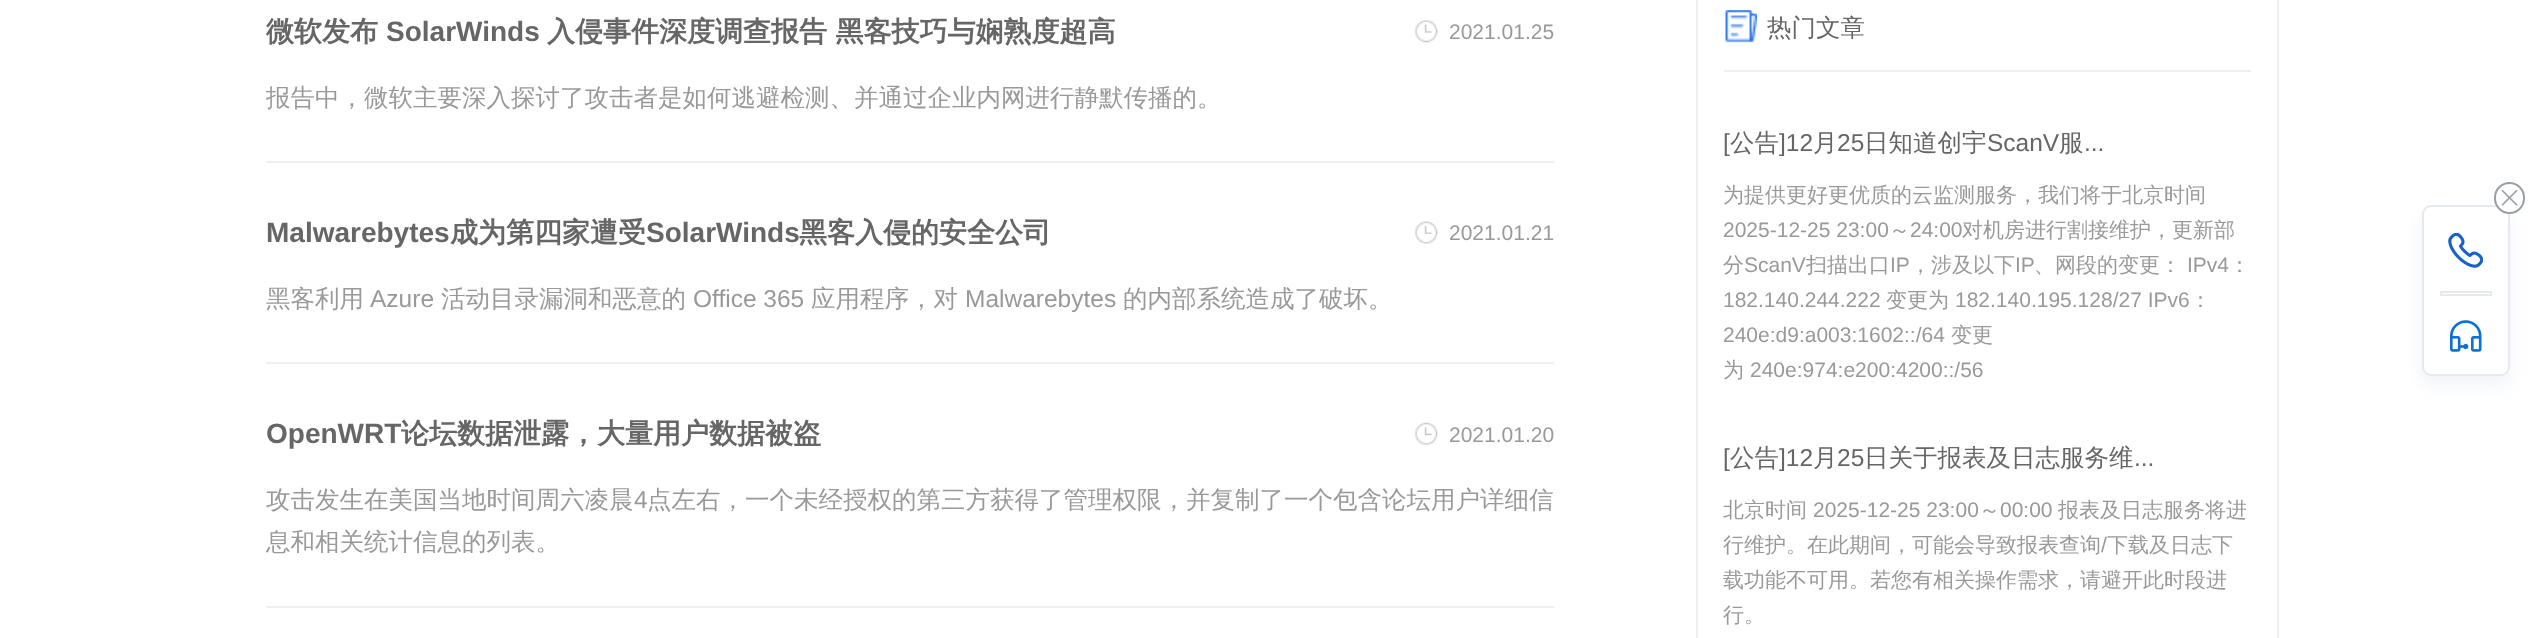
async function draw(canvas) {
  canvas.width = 2543
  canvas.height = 638
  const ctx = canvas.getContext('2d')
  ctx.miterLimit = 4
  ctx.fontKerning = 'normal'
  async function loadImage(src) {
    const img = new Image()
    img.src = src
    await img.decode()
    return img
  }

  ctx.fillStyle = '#fff'
  ctx.fillRect(0, 0, 2543, 638)
  ctx.fillStyle = '#efefef'
  ctx.fillRect(266, 161, 1288, 2)
  ctx.font = 'bold 28px WenQuanYi Zen Hei'
  ctx.fillStyle = '#666'
  ctx.fillText('微软发布', 266, 41)
  ctx.font = 'bold 28px Liberation Sans'
  ctx.fillText('SolarWinds', 386, 41)
  ctx.font = 'bold 28px WenQuanYi Zen Hei'
  ctx.fillText('入侵事件深度调查报告 黑客技巧与娴熟度超高', 547, 41)
  ctx.drawImage(await loadImage('image0.png'), 1415, 20, 23, 23)
  ctx.font = '21px Liberation Sans'
  ctx.fillStyle = '#999'
  ctx.fillText('2021.01.25', 1449, 39)
  ctx.font = '500 24.5px WenQuanYi Zen Hei'
  ctx.fillText('报告中，微软主要深入探讨了攻击者是如何逃避检测、并通过企业内网进行静默传播的。', 266, 106)
  ctx.fillStyle = '#efefef'
  ctx.fillRect(266, 362, 1288, 2)
  ctx.font = 'bold 28px Liberation Sans'
  ctx.fillStyle = '#666'
  ctx.fillText('Malwarebytes', 266, 242)
  ctx.font = 'bold 28px WenQuanYi Zen Hei'
  ctx.fillText('成为第四家遭受', 450, 242)
  ctx.font = 'bold 28px Liberation Sans'
  ctx.fillText('SolarWinds', 646, 242)
  ctx.font = 'bold 28px WenQuanYi Zen Hei'
  ctx.fillText('黑客入侵的安全公司', 799, 242)
  ctx.drawImage(await loadImage('image1.png'), 1415, 221, 23, 23)
  ctx.font = '21px Liberation Sans'
  ctx.fillStyle = '#999'
  ctx.fillText('2021.01.21', 1449, 240)
  ctx.font = '500 24.5px WenQuanYi Zen Hei'
  ctx.fillText('黑客利用', 266, 307)
  ctx.font = '24.5px Liberation Sans'
  ctx.fillText('Azure', 370, 307)
  ctx.font = '500 24.5px WenQuanYi Zen Hei'
  ctx.fillText('活动目录漏洞和恶意的', 441, 307)
  ctx.font = '24.5px Liberation Sans'
  ctx.fillText('Office 365', 693, 307)
  ctx.font = '500 24.5px WenQuanYi Zen Hei'
  ctx.fillText('应用程序，对', 811, 307)
  ctx.font = '24.5px Liberation Sans'
  ctx.fillText('Malwarebytes', 965, 307)
  ctx.font = '500 24.5px WenQuanYi Zen Hei'
  ctx.fillText('的内部系统造成了破坏。', 1123, 307)
  ctx.fillStyle = '#efefef'
  ctx.fillRect(266, 606, 1288, 2)
  ctx.font = 'bold 28px Liberation Sans'
  ctx.fillStyle = '#666'
  ctx.fillText('OpenWRT', 266, 443)
  ctx.font = 'bold 28px WenQuanYi Zen Hei'
  ctx.fillText('论坛数据泄露，大量用户数据被盗', 401, 443)
  ctx.drawImage(await loadImage('image2.png'), 1415, 422, 23, 23)
  ctx.font = '21px Liberation Sans'
  ctx.fillStyle = '#999'
  ctx.fillText('2021.01.20', 1449, 442)
  ctx.font = '500 24.5px WenQuanYi Zen Hei'
  ctx.fillText('攻击发生在美国当地时间周六凌晨', 266, 508)
  ctx.font = '24.5px Liberation Sans'
  ctx.fillText('4', 634, 508)
  ctx.font = '500 24.5px WenQuanYi Zen Hei'
  ctx.fillText('点左右，一个未经授权的第三方获得了管理权限，并复制了一个包含论坛用户详细信', 647, 508)
  ctx.fillText('息和相关统计信息的列表。', 266, 550)
  ctx.strokeStyle = '#efefef'
  ctx.lineWidth = 2
  ctx.strokeRect(1697, -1, 581, 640)
  ctx.drawImage(await loadImage('image3.png'), 1725, 10, 32, 33)
  ctx.fillStyle = '#efefef'
  ctx.fillRect(1724, 70, 527, 2)
  ctx.fillStyle = '#666'
  ctx.fillText('热门文章', 1767, 36)
  ctx.font = '24.5px Liberation Sans'
  ctx.fillText('[', 1723, 151)
  ctx.font = '500 24.5px WenQuanYi Zen Hei'
  ctx.fillText('公告', 1730, 151)
  ctx.font = '24.5px Liberation Sans'
  ctx.fillText(']12', 1779, 151)
  ctx.font = '500 24.5px WenQuanYi Zen Hei'
  ctx.fillText('月', 1813, 151)
  ctx.font = '24.5px Liberation Sans'
  ctx.fillText('25', 1837, 151)
  ctx.font = '500 24.5px WenQuanYi Zen Hei'
  ctx.fillText('日知道创宇', 1864, 151)
  ctx.font = '24.5px Liberation Sans'
  ctx.fillText('ScanV', 1987, 151)
  ctx.font = '500 24.5px WenQuanYi Zen Hei'
  ctx.fillText('服', 2059, 151)
  ctx.font = '24.5px Liberation Sans'
  ctx.fillText('...', 2084, 151)
  ctx.font = '500 21px WenQuanYi Zen Hei'
  ctx.fillStyle = '#999'
  ctx.fillText('为提供更好更优质的云监测服务，我们将于北京时间', 1723, 202)
  ctx.font = '21px Liberation Sans'
  ctx.fillText('2025-12-25 23:00', 1723, 237)
  ctx.font = '500 21px WenQuanYi Zen Hei'
  ctx.fillText('～', 1889, 237)
  ctx.font = '21px Liberation Sans'
  ctx.fillText('24:00', 1910, 237)
  ctx.font = '500 21px WenQuanYi Zen Hei'
  ctx.fillText('对机房进行割接维护，更新部', 1962, 237)
  ctx.fillText('分', 1723, 272)
  ctx.font = '21px Liberation Sans'
  ctx.fillText('ScanV', 1744, 272)
  ctx.font = '500 21px WenQuanYi Zen Hei'
  ctx.fillText('扫描出口', 1806, 272)
  ctx.font = '21px Liberation Sans'
  ctx.fillText('IP', 1890, 272)
  ctx.font = '500 21px WenQuanYi Zen Hei'
  ctx.fillText('，涉及以下', 1910, 272)
  ctx.font = '21px Liberation Sans'
  ctx.fillText('IP', 2015, 272)
  ctx.font = '500 21px WenQuanYi Zen Hei'
  ctx.fillText('、网段的变更：', 2034, 272)
  ctx.font = '21px Liberation Sans'
  ctx.fillText('IPv4', 2187, 272)
  ctx.font = '500 21px WenQuanYi Zen Hei'
  ctx.fillText('：', 2229, 272)
  ctx.font = '21px Liberation Sans'
  ctx.fillText('182.140.244.222', 1723, 307)
  ctx.font = '500 21px WenQuanYi Zen Hei'
  ctx.fillText('变更为', 1886, 307)
  ctx.font = '21px Liberation Sans'
  ctx.fillText('182.140.195.128/27 IPv6', 1955, 307)
  ctx.font = '500 21px WenQuanYi Zen Hei'
  ctx.fillText('：', 2190, 307)
  ctx.font = '21px Liberation Sans'
  ctx.fillText('240e:d9:a003:1602::/64', 1723, 342)
  ctx.font = '500 21px WenQuanYi Zen Hei'
  ctx.fillText('变更', 1951, 342)
  ctx.fillText('为', 1723, 377)
  ctx.font = '21px Liberation Sans'
  ctx.fillText('240e:974:e200:4200::/56', 1750, 377)
  ctx.font = '24.5px Liberation Sans'
  ctx.fillStyle = '#666'
  ctx.fillText('[', 1723, 466)
  ctx.font = '500 24.5px WenQuanYi Zen Hei'
  ctx.fillText('公告', 1730, 466)
  ctx.font = '24.5px Liberation Sans'
  ctx.fillText(']12', 1779, 466)
  ctx.font = '500 24.5px WenQuanYi Zen Hei'
  ctx.fillText('月', 1813, 466)
  ctx.font = '24.5px Liberation Sans'
  ctx.fillText('25', 1837, 466)
  ctx.font = '500 24.5px WenQuanYi Zen Hei'
  ctx.fillText('日关于报表及日志服务维', 1864, 466)
  ctx.font = '24.5px Liberation Sans'
  ctx.fillText('...', 2134, 466)
  ctx.font = '500 21px WenQuanYi Zen Hei'
  ctx.fillStyle = '#999'
  ctx.fillText('北京时间', 1723, 517)
  ctx.font = '21px Liberation Sans'
  ctx.fillText('2025-12-25 23:00', 1813, 517)
  ctx.font = '500 21px WenQuanYi Zen Hei'
  ctx.fillText('～', 1979, 517)
  ctx.font = '21px Liberation Sans'
  ctx.fillText('00:00', 2000, 517)
  ctx.font = '500 21px WenQuanYi Zen Hei'
  ctx.fillText('报表及日志服务将进', 2058, 517)
  ctx.fillText('行维护。在此期间，可能会导致报表查询', 1723, 552)
  ctx.font = '21px Liberation Sans'
  ctx.fillText('/', 2101, 552)
  ctx.font = '500 21px WenQuanYi Zen Hei'
  ctx.fillText('下载及日志下', 2107, 552)
  ctx.fillText('载功能不可用。若您有相关操作需求，请避开此时段进', 1723, 587)
  ctx.fillText('行。', 1723, 622)
  ctx.fillStyle = '#c4d1ec40'
  ctx.filter = 'blur(9px)'
  ctx.beginPath()
  ctx.roundRect(2422, 214, 88, 171, 9)
  ctx.fill()
  ctx.filter = 'none'
  ctx.fillStyle = '#fff'
  ctx.beginPath()
  ctx.roundRect(2423, 206, 86, 169, 8)
  ctx.fill()
  ctx.strokeStyle = '#e6eaef'
  ctx.stroke()
  ctx.beginPath()
  ctx.roundRect(2495, 183, 29, 30, 14.5)
  ctx.fill()
  ctx.strokeStyle = '#999ea8'
  ctx.stroke()
  ctx.drawImage(await loadImage('image4.png'), 2501, 189, 17, 17)
  ctx.drawImage(await loadImage('image5.png'), 2448, 233, 35, 35)
  ctx.strokeStyle = '#e6eaef'
  ctx.strokeRect(2441, 292, 50, 3)
  ctx.drawImage(await loadImage('image6.png'), 2450, 320, 32, 32)
}

draw(document.querySelector('canvas'))
